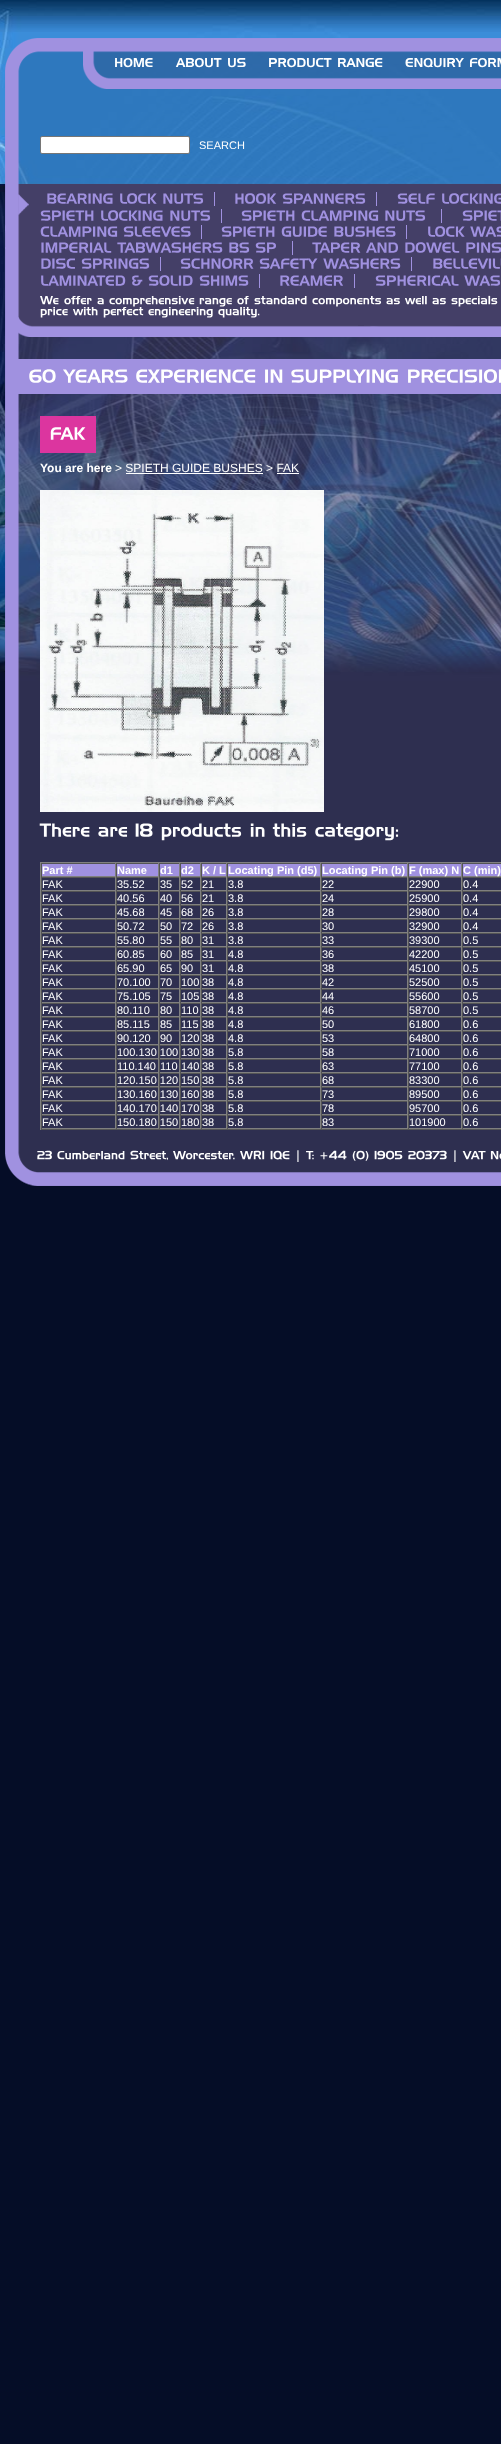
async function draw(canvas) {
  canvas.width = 501
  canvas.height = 2444
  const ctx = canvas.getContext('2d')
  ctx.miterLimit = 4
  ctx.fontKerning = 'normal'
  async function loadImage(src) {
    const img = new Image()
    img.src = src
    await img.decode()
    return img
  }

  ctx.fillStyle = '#050d27'
  ctx.fillRect(0, 0, 501, 2444)
  ctx.drawImage(await loadImage('image0.png'), 0, 0, 501, 681)
  ctx.drawImage(await loadImage('image1.png'), 5, 38, 496, 53)
  ctx.drawImage(await loadImage('image2.png'), 115, 58, 38, 10)
  ctx.drawImage(await loadImage('image3.png'), 175, 58, 47, 10)
  ctx.drawImage(await loadImage('image4.png'), 228, 58, 18, 10)
  ctx.drawImage(await loadImage('image5.png'), 269, 58, 63, 10)
  ctx.drawImage(await loadImage('image6.png'), 338, 58, 45, 9)
  ctx.drawImage(await loadImage('image7.png'), 405, 58, 59, 10)
  ctx.drawImage(await loadImage('image8.png'), 470, 58, 31, 10)
  ctx.drawImage(await loadImage('image9.png'), 5, 91, 496, 93)
  ctx.fillStyle = '#fff'
  ctx.beginPath()
  ctx.roundRect(40.5, 136.5, 149, 17, 1.5)
  ctx.fill()
  ctx.strokeStyle = '#767676'
  ctx.stroke()
  ctx.fillStyle = '#2f79be'
  ctx.fillRect(193, 138, 58, 14)
  ctx.font = '11px Liberation Sans'
  ctx.fillStyle = '#fff'
  ctx.fillText('SEARCH', 199, 149)
  ctx.drawImage(await loadImage('image10.png'), 5, 184, 496, 133)
  ctx.fillStyle = '#a091e0'
  ctx.fillRect(214, 192, 1, 14)
  ctx.drawImage(await loadImage('image11.png'), 47, 193, 66, 11)
  ctx.drawImage(await loadImage('image12.png'), 120, 193, 37, 11)
  ctx.drawImage(await loadImage('image13.png'), 163, 193, 41, 11)
  ctx.fillRect(376, 192, 1, 14)
  ctx.drawImage(await loadImage('image14.png'), 235, 193, 42, 11)
  ctx.drawImage(await loadImage('image15.png'), 282, 193, 84, 11)
  ctx.drawImage(await loadImage('image16.png'), 397, 193, 38, 11)
  ctx.drawImage(await loadImage('image17.png'), 442, 193, 59, 11)
  ctx.fillRect(221, 209, 1, 14)
  ctx.drawImage(await loadImage('image18.png'), 40, 210, 54, 11)
  ctx.drawImage(await loadImage('image19.png'), 101, 210, 62, 11)
  ctx.drawImage(await loadImage('image13.png'), 170, 210, 41, 11)
  ctx.fillRect(441, 209, 1, 14)
  ctx.drawImage(await loadImage('image18.png'), 241, 210, 54, 11)
  ctx.drawImage(await loadImage('image20.png'), 301, 210, 78, 11)
  ctx.drawImage(await loadImage('image13.png'), 385, 210, 41, 11)
  ctx.drawImage(await loadImage('image21.png'), 462, 210, 39, 11)
  ctx.fillRect(201, 225, 1, 14)
  ctx.drawImage(await loadImage('image20.png'), 40, 226, 78, 11)
  ctx.drawImage(await loadImage('image22.png'), 123, 226, 68, 11)
  ctx.fillRect(406, 225, 1, 14)
  ctx.drawImage(await loadImage('image18.png'), 221, 226, 54, 11)
  ctx.drawImage(await loadImage('image23.png'), 281, 226, 46, 11)
  ctx.drawImage(await loadImage('image24.png'), 334, 226, 62, 11)
  ctx.drawImage(await loadImage('image12.png'), 428, 226, 37, 11)
  ctx.drawImage(await loadImage('image25.png'), 470, 226, 31, 11)
  ctx.fillRect(292, 241, 1, 14)
  ctx.drawImage(await loadImage('image26.png'), 41, 242, 71, 11)
  ctx.drawImage(await loadImage('image27.png'), 117, 242, 106, 11)
  ctx.drawImage(await loadImage('image28.png'), 229, 242, 21, 11)
  ctx.drawImage(await loadImage('image29.png'), 255, 242, 21, 11)
  ctx.drawImage(await loadImage('image30.png'), 312, 242, 49, 11)
  ctx.drawImage(await loadImage('image31.png'), 366, 242, 32, 11)
  ctx.drawImage(await loadImage('image32.png'), 405, 242, 55, 11)
  ctx.drawImage(await loadImage('image33.png'), 466, 242, 35, 11)
  ctx.fillRect(160, 257, 1, 14)
  ctx.drawImage(await loadImage('image34.png'), 41, 258, 34, 11)
  ctx.drawImage(await loadImage('image35.png'), 81, 258, 69, 11)
  ctx.fillRect(411, 257, 1, 14)
  ctx.drawImage(await loadImage('image36.png'), 180, 258, 74, 11)
  ctx.drawImage(await loadImage('image37.png'), 259, 258, 59, 11)
  ctx.drawImage(await loadImage('image38.png'), 323, 258, 78, 11)
  ctx.drawImage(await loadImage('image39.png'), 433, 258, 68, 11)
  ctx.fillRect(259, 274, 1, 14)
  ctx.drawImage(await loadImage('image40.png'), 41, 275, 85, 11)
  ctx.drawImage(await loadImage('image41.png'), 132, 275, 11, 11)
  ctx.drawImage(await loadImage('image42.png'), 148, 275, 45, 11)
  ctx.drawImage(await loadImage('image43.png'), 199, 275, 50, 11)
  ctx.fillRect(354, 274, 1, 14)
  ctx.drawImage(await loadImage('image44.png'), 280, 275, 63, 11)
  ctx.drawImage(await loadImage('image45.png'), 375, 275, 84, 11)
  ctx.drawImage(await loadImage('image46.png'), 464, 275, 37, 11)
  ctx.drawImage(await loadImage('image47.png'), 40, 296, 19, 9)
  ctx.drawImage(await loadImage('image48.png'), 64, 296, 28, 9)
  ctx.drawImage(await loadImage('image49.png'), 97, 298, 7, 7)
  ctx.drawImage(await loadImage('image50.png'), 109, 296, 86, 11)
  ctx.drawImage(await loadImage('image51.png'), 199, 298, 33, 9)
  ctx.drawImage(await loadImage('image52.png'), 237, 296, 12, 9)
  ctx.drawImage(await loadImage('image53.png'), 254, 296, 53, 9)
  ctx.drawImage(await loadImage('image54.png'), 312, 296, 70, 11)
  ctx.drawImage(await loadImage('image55.png'), 386, 298, 14, 7)
  ctx.drawImage(await loadImage('image56.png'), 405, 296, 22, 9)
  ctx.drawImage(await loadImage('image55.png'), 432, 298, 14, 7)
  ctx.drawImage(await loadImage('image57.png'), 451, 295, 47, 12)
  ctx.drawImage(await loadImage('image63.png'), 5, 317, 496, 99)
  ctx.drawImage(await loadImage('image58.png'), 40, 307, 28, 11)
  ctx.drawImage(await loadImage('image59.png'), 73, 307, 25, 9)
  ctx.drawImage(await loadImage('image60.png'), 103, 307, 41, 11)
  ctx.drawImage(await loadImage('image61.png'), 148, 307, 65, 11)
  ctx.drawImage(await loadImage('image62.png'), 218, 307, 42, 11)
  ctx.drawImage(await loadImage('image64.png'), 29, 369, 27, 14)
  ctx.drawImage(await loadImage('image65.png'), 63, 369, 65, 14)
  ctx.drawImage(await loadImage('image66.png'), 136, 369, 120, 14)
  ctx.drawImage(await loadImage('image67.png'), 265, 369, 18, 14)
  ctx.drawImage(await loadImage('image68.png'), 291, 369, 107, 14)
  ctx.drawImage(await loadImage('image69.png'), 408, 369, 93, 14)
  ctx.drawImage(await loadImage('image70.png'), 5, 416, 496, 734)
  ctx.fillStyle = '#dc359f'
  ctx.fillRect(40, 416, 56, 37)
  ctx.drawImage(await loadImage('image71.png'), 50, 427, 36, 13)
  ctx.font = 'bold 12px Liberation Sans'
  ctx.fillStyle = '#fff'
  ctx.fillText('You are here', 40, 472)
  ctx.font = '12px Liberation Sans'
  ctx.fillText('> SPIETH GUIDE BUSHES > FAK', 115, 472)
  ctx.fillRect(126, 473, 137, 1)
  ctx.fillRect(277, 473, 22, 1)
  ctx.drawImage(await loadImage('image72.png'), 40, 490, 284, 322)
  ctx.drawImage(await loadImage('image73.png'), 39, 823, 51, 14)
  ctx.drawImage(await loadImage('image74.png'), 98, 827, 30, 10)
  ctx.drawImage(await loadImage('image75.png'), 135, 823, 18, 14)
  ctx.drawImage(await loadImage('image76.png'), 161, 823, 81, 18)
  ctx.drawImage(await loadImage('image77.png'), 250, 823, 15, 14)
  ctx.drawImage(await loadImage('image78.png'), 272, 823, 35, 14)
  ctx.drawImage(await loadImage('image79.png'), 315, 823, 84, 18)
  ctx.fillStyle = '#808080'
  ctx.fillRect(40, 862, 461, 1)
  ctx.fillStyle = '#555'
  ctx.fillRect(40, 1129, 461, 1)
  ctx.fillStyle = '#808080'
  ctx.fillRect(40, 862, 1, 268)
  ctx.fillStyle = '#a091e0'
  ctx.fillRect(42, 864, 459, 12)
  ctx.fillStyle = '#555'
  ctx.fillRect(41, 863, 460, 1)
  ctx.fillStyle = '#808080'
  ctx.fillRect(115, 863, 1, 14)
  ctx.fillRect(41, 876, 75, 1)
  ctx.fillStyle = '#555'
  ctx.fillRect(41, 863, 1, 14)
  ctx.font = 'bold 11px Liberation Sans'
  ctx.fillStyle = '#fff'
  ctx.fillText('Part #', 42, 874)
  ctx.fillStyle = '#808080'
  ctx.fillRect(158, 863, 1, 14)
  ctx.fillRect(116, 876, 43, 1)
  ctx.fillStyle = '#555'
  ctx.fillRect(116, 863, 1, 14)
  ctx.fillStyle = '#fff'
  ctx.fillText('Name', 117, 874)
  ctx.fillStyle = '#808080'
  ctx.fillRect(179, 863, 1, 14)
  ctx.fillRect(159, 876, 21, 1)
  ctx.fillStyle = '#555'
  ctx.fillRect(159, 863, 1, 14)
  ctx.fillStyle = '#fff'
  ctx.fillText('d1', 160, 874)
  ctx.fillStyle = '#808080'
  ctx.fillRect(200, 863, 1, 14)
  ctx.fillRect(180, 876, 21, 1)
  ctx.fillStyle = '#555'
  ctx.fillRect(180, 863, 1, 14)
  ctx.fillStyle = '#fff'
  ctx.fillText('d2', 181, 874)
  ctx.fillStyle = '#808080'
  ctx.fillRect(226, 863, 1, 14)
  ctx.fillRect(201, 876, 26, 1)
  ctx.fillStyle = '#555'
  ctx.fillRect(201, 863, 1, 14)
  ctx.fillStyle = '#fff'
  ctx.fillText('K / L', 202, 874)
  ctx.fillStyle = '#808080'
  ctx.fillRect(320, 863, 1, 14)
  ctx.fillRect(227, 876, 94, 1)
  ctx.fillStyle = '#555'
  ctx.fillRect(227, 863, 1, 14)
  ctx.fillStyle = '#fff'
  ctx.fillText('Locating Pin (d5)', 228, 874)
  ctx.fillStyle = '#808080'
  ctx.fillRect(407, 863, 1, 14)
  ctx.fillRect(321, 876, 87, 1)
  ctx.fillStyle = '#555'
  ctx.fillRect(321, 863, 1, 14)
  ctx.fillStyle = '#fff'
  ctx.fillText('Locating Pin (b)', 322, 874)
  ctx.fillStyle = '#808080'
  ctx.fillRect(461, 863, 1, 14)
  ctx.fillRect(408, 876, 93, 1)
  ctx.fillStyle = '#555'
  ctx.fillRect(408, 863, 1, 14)
  ctx.fillStyle = '#fff'
  ctx.fillText('F (max) N', 409, 874)
  ctx.fillStyle = '#555'
  ctx.fillRect(462, 863, 1, 14)
  ctx.fillStyle = '#fff'
  ctx.fillText('C (min)', 463, 874)
  ctx.fillStyle = '#555'
  ctx.fillRect(41, 877, 460, 1)
  ctx.fillStyle = '#808080'
  ctx.fillRect(115, 877, 1, 14)
  ctx.fillRect(41, 890, 75, 1)
  ctx.fillStyle = '#555'
  ctx.fillRect(41, 877, 1, 14)
  ctx.font = '11px Liberation Sans'
  ctx.fillStyle = '#fff'
  ctx.fillText('FAK', 42, 888)
  ctx.fillStyle = '#808080'
  ctx.fillRect(158, 877, 1, 14)
  ctx.fillRect(116, 890, 43, 1)
  ctx.fillStyle = '#555'
  ctx.fillRect(116, 877, 1, 14)
  ctx.fillStyle = '#fff'
  ctx.fillText('35.52', 117, 888)
  ctx.fillStyle = '#808080'
  ctx.fillRect(179, 877, 1, 14)
  ctx.fillRect(159, 890, 21, 1)
  ctx.fillStyle = '#555'
  ctx.fillRect(159, 877, 1, 14)
  ctx.fillStyle = '#fff'
  ctx.fillText('35', 160, 888)
  ctx.fillStyle = '#808080'
  ctx.fillRect(200, 877, 1, 14)
  ctx.fillRect(180, 890, 21, 1)
  ctx.fillStyle = '#555'
  ctx.fillRect(180, 877, 1, 14)
  ctx.fillStyle = '#fff'
  ctx.fillText('52', 181, 888)
  ctx.fillStyle = '#808080'
  ctx.fillRect(226, 877, 1, 14)
  ctx.fillRect(201, 890, 26, 1)
  ctx.fillStyle = '#555'
  ctx.fillRect(201, 877, 1, 14)
  ctx.fillStyle = '#fff'
  ctx.fillText('21', 202, 888)
  ctx.fillStyle = '#808080'
  ctx.fillRect(320, 877, 1, 14)
  ctx.fillRect(227, 890, 94, 1)
  ctx.fillStyle = '#555'
  ctx.fillRect(227, 877, 1, 14)
  ctx.fillStyle = '#fff'
  ctx.fillText('3.8', 228, 888)
  ctx.fillStyle = '#808080'
  ctx.fillRect(407, 877, 1, 14)
  ctx.fillRect(321, 890, 87, 1)
  ctx.fillStyle = '#555'
  ctx.fillRect(321, 877, 1, 14)
  ctx.fillStyle = '#fff'
  ctx.fillText('22', 322, 888)
  ctx.fillStyle = '#808080'
  ctx.fillRect(461, 877, 1, 14)
  ctx.fillRect(408, 890, 93, 1)
  ctx.fillStyle = '#555'
  ctx.fillRect(408, 877, 1, 14)
  ctx.fillStyle = '#fff'
  ctx.fillText('22900', 409, 888)
  ctx.fillStyle = '#555'
  ctx.fillRect(462, 877, 1, 14)
  ctx.fillStyle = '#fff'
  ctx.fillText('0.4', 463, 888)
  ctx.fillStyle = '#555'
  ctx.fillRect(41, 891, 460, 1)
  ctx.fillStyle = '#808080'
  ctx.fillRect(115, 891, 1, 14)
  ctx.fillRect(41, 904, 75, 1)
  ctx.fillStyle = '#555'
  ctx.fillRect(41, 891, 1, 14)
  ctx.fillStyle = '#fff'
  ctx.fillText('FAK', 42, 902)
  ctx.fillStyle = '#808080'
  ctx.fillRect(158, 891, 1, 14)
  ctx.fillRect(116, 904, 43, 1)
  ctx.fillStyle = '#555'
  ctx.fillRect(116, 891, 1, 14)
  ctx.fillStyle = '#fff'
  ctx.fillText('40.56', 117, 902)
  ctx.fillStyle = '#808080'
  ctx.fillRect(179, 891, 1, 14)
  ctx.fillRect(159, 904, 21, 1)
  ctx.fillStyle = '#555'
  ctx.fillRect(159, 891, 1, 14)
  ctx.fillStyle = '#fff'
  ctx.fillText('40', 160, 902)
  ctx.fillStyle = '#808080'
  ctx.fillRect(200, 891, 1, 14)
  ctx.fillRect(180, 904, 21, 1)
  ctx.fillStyle = '#555'
  ctx.fillRect(180, 891, 1, 14)
  ctx.fillStyle = '#fff'
  ctx.fillText('56', 181, 902)
  ctx.fillStyle = '#808080'
  ctx.fillRect(226, 891, 1, 14)
  ctx.fillRect(201, 904, 26, 1)
  ctx.fillStyle = '#555'
  ctx.fillRect(201, 891, 1, 14)
  ctx.fillStyle = '#fff'
  ctx.fillText('21', 202, 902)
  ctx.fillStyle = '#808080'
  ctx.fillRect(320, 891, 1, 14)
  ctx.fillRect(227, 904, 94, 1)
  ctx.fillStyle = '#555'
  ctx.fillRect(227, 891, 1, 14)
  ctx.fillStyle = '#fff'
  ctx.fillText('3.8', 228, 902)
  ctx.fillStyle = '#808080'
  ctx.fillRect(407, 891, 1, 14)
  ctx.fillRect(321, 904, 87, 1)
  ctx.fillStyle = '#555'
  ctx.fillRect(321, 891, 1, 14)
  ctx.fillStyle = '#fff'
  ctx.fillText('24', 322, 902)
  ctx.fillStyle = '#808080'
  ctx.fillRect(461, 891, 1, 14)
  ctx.fillRect(408, 904, 93, 1)
  ctx.fillStyle = '#555'
  ctx.fillRect(408, 891, 1, 14)
  ctx.fillStyle = '#fff'
  ctx.fillText('25900', 409, 902)
  ctx.fillStyle = '#555'
  ctx.fillRect(462, 891, 1, 14)
  ctx.fillStyle = '#fff'
  ctx.fillText('0.4', 463, 902)
  ctx.fillStyle = '#555'
  ctx.fillRect(41, 905, 460, 1)
  ctx.fillStyle = '#808080'
  ctx.fillRect(115, 905, 1, 14)
  ctx.fillRect(41, 918, 75, 1)
  ctx.fillStyle = '#555'
  ctx.fillRect(41, 905, 1, 14)
  ctx.fillStyle = '#fff'
  ctx.fillText('FAK', 42, 916)
  ctx.fillStyle = '#808080'
  ctx.fillRect(158, 905, 1, 14)
  ctx.fillRect(116, 918, 43, 1)
  ctx.fillStyle = '#555'
  ctx.fillRect(116, 905, 1, 14)
  ctx.fillStyle = '#fff'
  ctx.fillText('45.68', 117, 916)
  ctx.fillStyle = '#808080'
  ctx.fillRect(179, 905, 1, 14)
  ctx.fillRect(159, 918, 21, 1)
  ctx.fillStyle = '#555'
  ctx.fillRect(159, 905, 1, 14)
  ctx.fillStyle = '#fff'
  ctx.fillText('45', 160, 916)
  ctx.fillStyle = '#808080'
  ctx.fillRect(200, 905, 1, 14)
  ctx.fillRect(180, 918, 21, 1)
  ctx.fillStyle = '#555'
  ctx.fillRect(180, 905, 1, 14)
  ctx.fillStyle = '#fff'
  ctx.fillText('68', 181, 916)
  ctx.fillStyle = '#808080'
  ctx.fillRect(226, 905, 1, 14)
  ctx.fillRect(201, 918, 26, 1)
  ctx.fillStyle = '#555'
  ctx.fillRect(201, 905, 1, 14)
  ctx.fillStyle = '#fff'
  ctx.fillText('26', 202, 916)
  ctx.fillStyle = '#808080'
  ctx.fillRect(320, 905, 1, 14)
  ctx.fillRect(227, 918, 94, 1)
  ctx.fillStyle = '#555'
  ctx.fillRect(227, 905, 1, 14)
  ctx.fillStyle = '#fff'
  ctx.fillText('3.8', 228, 916)
  ctx.fillStyle = '#808080'
  ctx.fillRect(407, 905, 1, 14)
  ctx.fillRect(321, 918, 87, 1)
  ctx.fillStyle = '#555'
  ctx.fillRect(321, 905, 1, 14)
  ctx.fillStyle = '#fff'
  ctx.fillText('28', 322, 916)
  ctx.fillStyle = '#808080'
  ctx.fillRect(461, 905, 1, 14)
  ctx.fillRect(408, 918, 93, 1)
  ctx.fillStyle = '#555'
  ctx.fillRect(408, 905, 1, 14)
  ctx.fillStyle = '#fff'
  ctx.fillText('29800', 409, 916)
  ctx.fillStyle = '#555'
  ctx.fillRect(462, 905, 1, 14)
  ctx.fillStyle = '#fff'
  ctx.fillText('0.4', 463, 916)
  ctx.fillStyle = '#555'
  ctx.fillRect(41, 919, 460, 1)
  ctx.fillStyle = '#808080'
  ctx.fillRect(115, 919, 1, 14)
  ctx.fillRect(41, 932, 75, 1)
  ctx.fillStyle = '#555'
  ctx.fillRect(41, 919, 1, 14)
  ctx.fillStyle = '#fff'
  ctx.fillText('FAK', 42, 930)
  ctx.fillStyle = '#808080'
  ctx.fillRect(158, 919, 1, 14)
  ctx.fillRect(116, 932, 43, 1)
  ctx.fillStyle = '#555'
  ctx.fillRect(116, 919, 1, 14)
  ctx.fillStyle = '#fff'
  ctx.fillText('50.72', 117, 930)
  ctx.fillStyle = '#808080'
  ctx.fillRect(179, 919, 1, 14)
  ctx.fillRect(159, 932, 21, 1)
  ctx.fillStyle = '#555'
  ctx.fillRect(159, 919, 1, 14)
  ctx.fillStyle = '#fff'
  ctx.fillText('50', 160, 930)
  ctx.fillStyle = '#808080'
  ctx.fillRect(200, 919, 1, 14)
  ctx.fillRect(180, 932, 21, 1)
  ctx.fillStyle = '#555'
  ctx.fillRect(180, 919, 1, 14)
  ctx.fillStyle = '#fff'
  ctx.fillText('72', 181, 930)
  ctx.fillStyle = '#808080'
  ctx.fillRect(226, 919, 1, 14)
  ctx.fillRect(201, 932, 26, 1)
  ctx.fillStyle = '#555'
  ctx.fillRect(201, 919, 1, 14)
  ctx.fillStyle = '#fff'
  ctx.fillText('26', 202, 930)
  ctx.fillStyle = '#808080'
  ctx.fillRect(320, 919, 1, 14)
  ctx.fillRect(227, 932, 94, 1)
  ctx.fillStyle = '#555'
  ctx.fillRect(227, 919, 1, 14)
  ctx.fillStyle = '#fff'
  ctx.fillText('3.8', 228, 930)
  ctx.fillStyle = '#808080'
  ctx.fillRect(407, 919, 1, 14)
  ctx.fillRect(321, 932, 87, 1)
  ctx.fillStyle = '#555'
  ctx.fillRect(321, 919, 1, 14)
  ctx.fillStyle = '#fff'
  ctx.fillText('30', 322, 930)
  ctx.fillStyle = '#808080'
  ctx.fillRect(461, 919, 1, 14)
  ctx.fillRect(408, 932, 93, 1)
  ctx.fillStyle = '#555'
  ctx.fillRect(408, 919, 1, 14)
  ctx.fillStyle = '#fff'
  ctx.fillText('32900', 409, 930)
  ctx.fillStyle = '#555'
  ctx.fillRect(462, 919, 1, 14)
  ctx.fillStyle = '#fff'
  ctx.fillText('0.4', 463, 930)
  ctx.fillStyle = '#555'
  ctx.fillRect(41, 933, 460, 1)
  ctx.fillStyle = '#808080'
  ctx.fillRect(115, 933, 1, 14)
  ctx.fillRect(41, 946, 75, 1)
  ctx.fillStyle = '#555'
  ctx.fillRect(41, 933, 1, 14)
  ctx.fillStyle = '#fff'
  ctx.fillText('FAK', 42, 944)
  ctx.fillStyle = '#808080'
  ctx.fillRect(158, 933, 1, 14)
  ctx.fillRect(116, 946, 43, 1)
  ctx.fillStyle = '#555'
  ctx.fillRect(116, 933, 1, 14)
  ctx.fillStyle = '#fff'
  ctx.fillText('55.80', 117, 944)
  ctx.fillStyle = '#808080'
  ctx.fillRect(179, 933, 1, 14)
  ctx.fillRect(159, 946, 21, 1)
  ctx.fillStyle = '#555'
  ctx.fillRect(159, 933, 1, 14)
  ctx.fillStyle = '#fff'
  ctx.fillText('55', 160, 944)
  ctx.fillStyle = '#808080'
  ctx.fillRect(200, 933, 1, 14)
  ctx.fillRect(180, 946, 21, 1)
  ctx.fillStyle = '#555'
  ctx.fillRect(180, 933, 1, 14)
  ctx.fillStyle = '#fff'
  ctx.fillText('80', 181, 944)
  ctx.fillStyle = '#808080'
  ctx.fillRect(226, 933, 1, 14)
  ctx.fillRect(201, 946, 26, 1)
  ctx.fillStyle = '#555'
  ctx.fillRect(201, 933, 1, 14)
  ctx.fillStyle = '#fff'
  ctx.fillText('31', 202, 944)
  ctx.fillStyle = '#808080'
  ctx.fillRect(320, 933, 1, 14)
  ctx.fillRect(227, 946, 94, 1)
  ctx.fillStyle = '#555'
  ctx.fillRect(227, 933, 1, 14)
  ctx.fillStyle = '#fff'
  ctx.fillText('3.8', 228, 944)
  ctx.fillStyle = '#808080'
  ctx.fillRect(407, 933, 1, 14)
  ctx.fillRect(321, 946, 87, 1)
  ctx.fillStyle = '#555'
  ctx.fillRect(321, 933, 1, 14)
  ctx.fillStyle = '#fff'
  ctx.fillText('33', 322, 944)
  ctx.fillStyle = '#808080'
  ctx.fillRect(461, 933, 1, 14)
  ctx.fillRect(408, 946, 93, 1)
  ctx.fillStyle = '#555'
  ctx.fillRect(408, 933, 1, 14)
  ctx.fillStyle = '#fff'
  ctx.fillText('39300', 409, 944)
  ctx.fillStyle = '#555'
  ctx.fillRect(462, 933, 1, 14)
  ctx.fillStyle = '#fff'
  ctx.fillText('0.5', 463, 944)
  ctx.fillStyle = '#555'
  ctx.fillRect(41, 947, 460, 1)
  ctx.fillStyle = '#808080'
  ctx.fillRect(115, 947, 1, 14)
  ctx.fillRect(41, 960, 75, 1)
  ctx.fillStyle = '#555'
  ctx.fillRect(41, 947, 1, 14)
  ctx.fillStyle = '#fff'
  ctx.fillText('FAK', 42, 958)
  ctx.fillStyle = '#808080'
  ctx.fillRect(158, 947, 1, 14)
  ctx.fillRect(116, 960, 43, 1)
  ctx.fillStyle = '#555'
  ctx.fillRect(116, 947, 1, 14)
  ctx.fillStyle = '#fff'
  ctx.fillText('60.85', 117, 958)
  ctx.fillStyle = '#808080'
  ctx.fillRect(179, 947, 1, 14)
  ctx.fillRect(159, 960, 21, 1)
  ctx.fillStyle = '#555'
  ctx.fillRect(159, 947, 1, 14)
  ctx.fillStyle = '#fff'
  ctx.fillText('60', 160, 958)
  ctx.fillStyle = '#808080'
  ctx.fillRect(200, 947, 1, 14)
  ctx.fillRect(180, 960, 21, 1)
  ctx.fillStyle = '#555'
  ctx.fillRect(180, 947, 1, 14)
  ctx.fillStyle = '#fff'
  ctx.fillText('85', 181, 958)
  ctx.fillStyle = '#808080'
  ctx.fillRect(226, 947, 1, 14)
  ctx.fillRect(201, 960, 26, 1)
  ctx.fillStyle = '#555'
  ctx.fillRect(201, 947, 1, 14)
  ctx.fillStyle = '#fff'
  ctx.fillText('31', 202, 958)
  ctx.fillStyle = '#808080'
  ctx.fillRect(320, 947, 1, 14)
  ctx.fillRect(227, 960, 94, 1)
  ctx.fillStyle = '#555'
  ctx.fillRect(227, 947, 1, 14)
  ctx.fillStyle = '#fff'
  ctx.fillText('4.8', 228, 958)
  ctx.fillStyle = '#808080'
  ctx.fillRect(407, 947, 1, 14)
  ctx.fillRect(321, 960, 87, 1)
  ctx.fillStyle = '#555'
  ctx.fillRect(321, 947, 1, 14)
  ctx.fillStyle = '#fff'
  ctx.fillText('36', 322, 958)
  ctx.fillStyle = '#808080'
  ctx.fillRect(461, 947, 1, 14)
  ctx.fillRect(408, 960, 93, 1)
  ctx.fillStyle = '#555'
  ctx.fillRect(408, 947, 1, 14)
  ctx.fillStyle = '#fff'
  ctx.fillText('42200', 409, 958)
  ctx.fillStyle = '#555'
  ctx.fillRect(462, 947, 1, 14)
  ctx.fillStyle = '#fff'
  ctx.fillText('0.5', 463, 958)
  ctx.fillStyle = '#555'
  ctx.fillRect(41, 961, 460, 1)
  ctx.fillStyle = '#808080'
  ctx.fillRect(115, 961, 1, 14)
  ctx.fillRect(41, 974, 75, 1)
  ctx.fillStyle = '#555'
  ctx.fillRect(41, 961, 1, 14)
  ctx.fillStyle = '#fff'
  ctx.fillText('FAK', 42, 972)
  ctx.fillStyle = '#808080'
  ctx.fillRect(158, 961, 1, 14)
  ctx.fillRect(116, 974, 43, 1)
  ctx.fillStyle = '#555'
  ctx.fillRect(116, 961, 1, 14)
  ctx.fillStyle = '#fff'
  ctx.fillText('65.90', 117, 972)
  ctx.fillStyle = '#808080'
  ctx.fillRect(179, 961, 1, 14)
  ctx.fillRect(159, 974, 21, 1)
  ctx.fillStyle = '#555'
  ctx.fillRect(159, 961, 1, 14)
  ctx.fillStyle = '#fff'
  ctx.fillText('65', 160, 972)
  ctx.fillStyle = '#808080'
  ctx.fillRect(200, 961, 1, 14)
  ctx.fillRect(180, 974, 21, 1)
  ctx.fillStyle = '#555'
  ctx.fillRect(180, 961, 1, 14)
  ctx.fillStyle = '#fff'
  ctx.fillText('90', 181, 972)
  ctx.fillStyle = '#808080'
  ctx.fillRect(226, 961, 1, 14)
  ctx.fillRect(201, 974, 26, 1)
  ctx.fillStyle = '#555'
  ctx.fillRect(201, 961, 1, 14)
  ctx.fillStyle = '#fff'
  ctx.fillText('31', 202, 972)
  ctx.fillStyle = '#808080'
  ctx.fillRect(320, 961, 1, 14)
  ctx.fillRect(227, 974, 94, 1)
  ctx.fillStyle = '#555'
  ctx.fillRect(227, 961, 1, 14)
  ctx.fillStyle = '#fff'
  ctx.fillText('4.8', 228, 972)
  ctx.fillStyle = '#808080'
  ctx.fillRect(407, 961, 1, 14)
  ctx.fillRect(321, 974, 87, 1)
  ctx.fillStyle = '#555'
  ctx.fillRect(321, 961, 1, 14)
  ctx.fillStyle = '#fff'
  ctx.fillText('38', 322, 972)
  ctx.fillStyle = '#808080'
  ctx.fillRect(461, 961, 1, 14)
  ctx.fillRect(408, 974, 93, 1)
  ctx.fillStyle = '#555'
  ctx.fillRect(408, 961, 1, 14)
  ctx.fillStyle = '#fff'
  ctx.fillText('45100', 409, 972)
  ctx.fillStyle = '#555'
  ctx.fillRect(462, 961, 1, 14)
  ctx.fillStyle = '#fff'
  ctx.fillText('0.5', 463, 972)
  ctx.fillStyle = '#555'
  ctx.fillRect(41, 975, 460, 1)
  ctx.fillStyle = '#808080'
  ctx.fillRect(115, 975, 1, 14)
  ctx.fillRect(41, 988, 75, 1)
  ctx.fillStyle = '#555'
  ctx.fillRect(41, 975, 1, 14)
  ctx.fillStyle = '#fff'
  ctx.fillText('FAK', 42, 986)
  ctx.fillStyle = '#808080'
  ctx.fillRect(158, 975, 1, 14)
  ctx.fillRect(116, 988, 43, 1)
  ctx.fillStyle = '#555'
  ctx.fillRect(116, 975, 1, 14)
  ctx.fillStyle = '#fff'
  ctx.fillText('70.100', 117, 986)
  ctx.fillStyle = '#808080'
  ctx.fillRect(179, 975, 1, 14)
  ctx.fillRect(159, 988, 21, 1)
  ctx.fillStyle = '#555'
  ctx.fillRect(159, 975, 1, 14)
  ctx.fillStyle = '#fff'
  ctx.fillText('70', 160, 986)
  ctx.fillStyle = '#808080'
  ctx.fillRect(200, 975, 1, 14)
  ctx.fillRect(180, 988, 21, 1)
  ctx.fillStyle = '#555'
  ctx.fillRect(180, 975, 1, 14)
  ctx.fillStyle = '#fff'
  ctx.fillText('100', 181, 986)
  ctx.fillStyle = '#808080'
  ctx.fillRect(226, 975, 1, 14)
  ctx.fillRect(201, 988, 26, 1)
  ctx.fillStyle = '#555'
  ctx.fillRect(201, 975, 1, 14)
  ctx.fillStyle = '#fff'
  ctx.fillText('38', 202, 986)
  ctx.fillStyle = '#808080'
  ctx.fillRect(320, 975, 1, 14)
  ctx.fillRect(227, 988, 94, 1)
  ctx.fillStyle = '#555'
  ctx.fillRect(227, 975, 1, 14)
  ctx.fillStyle = '#fff'
  ctx.fillText('4.8', 228, 986)
  ctx.fillStyle = '#808080'
  ctx.fillRect(407, 975, 1, 14)
  ctx.fillRect(321, 988, 87, 1)
  ctx.fillStyle = '#555'
  ctx.fillRect(321, 975, 1, 14)
  ctx.fillStyle = '#fff'
  ctx.fillText('42', 322, 986)
  ctx.fillStyle = '#808080'
  ctx.fillRect(461, 975, 1, 14)
  ctx.fillRect(408, 988, 93, 1)
  ctx.fillStyle = '#555'
  ctx.fillRect(408, 975, 1, 14)
  ctx.fillStyle = '#fff'
  ctx.fillText('52500', 409, 986)
  ctx.fillStyle = '#555'
  ctx.fillRect(462, 975, 1, 14)
  ctx.fillStyle = '#fff'
  ctx.fillText('0.5', 463, 986)
  ctx.fillStyle = '#555'
  ctx.fillRect(41, 989, 460, 1)
  ctx.fillStyle = '#808080'
  ctx.fillRect(115, 989, 1, 14)
  ctx.fillRect(41, 1002, 75, 1)
  ctx.fillStyle = '#555'
  ctx.fillRect(41, 989, 1, 14)
  ctx.fillStyle = '#fff'
  ctx.fillText('FAK', 42, 1000)
  ctx.fillStyle = '#808080'
  ctx.fillRect(158, 989, 1, 14)
  ctx.fillRect(116, 1002, 43, 1)
  ctx.fillStyle = '#555'
  ctx.fillRect(116, 989, 1, 14)
  ctx.fillStyle = '#fff'
  ctx.fillText('75.105', 117, 1000)
  ctx.fillStyle = '#808080'
  ctx.fillRect(179, 989, 1, 14)
  ctx.fillRect(159, 1002, 21, 1)
  ctx.fillStyle = '#555'
  ctx.fillRect(159, 989, 1, 14)
  ctx.fillStyle = '#fff'
  ctx.fillText('75', 160, 1000)
  ctx.fillStyle = '#808080'
  ctx.fillRect(200, 989, 1, 14)
  ctx.fillRect(180, 1002, 21, 1)
  ctx.fillStyle = '#555'
  ctx.fillRect(180, 989, 1, 14)
  ctx.fillStyle = '#fff'
  ctx.fillText('105', 181, 1000)
  ctx.fillStyle = '#808080'
  ctx.fillRect(226, 989, 1, 14)
  ctx.fillRect(201, 1002, 26, 1)
  ctx.fillStyle = '#555'
  ctx.fillRect(201, 989, 1, 14)
  ctx.fillStyle = '#fff'
  ctx.fillText('38', 202, 1000)
  ctx.fillStyle = '#808080'
  ctx.fillRect(320, 989, 1, 14)
  ctx.fillRect(227, 1002, 94, 1)
  ctx.fillStyle = '#555'
  ctx.fillRect(227, 989, 1, 14)
  ctx.fillStyle = '#fff'
  ctx.fillText('4.8', 228, 1000)
  ctx.fillStyle = '#808080'
  ctx.fillRect(407, 989, 1, 14)
  ctx.fillRect(321, 1002, 87, 1)
  ctx.fillStyle = '#555'
  ctx.fillRect(321, 989, 1, 14)
  ctx.fillStyle = '#fff'
  ctx.fillText('44', 322, 1000)
  ctx.fillStyle = '#808080'
  ctx.fillRect(461, 989, 1, 14)
  ctx.fillRect(408, 1002, 93, 1)
  ctx.fillStyle = '#555'
  ctx.fillRect(408, 989, 1, 14)
  ctx.fillStyle = '#fff'
  ctx.fillText('55600', 409, 1000)
  ctx.fillStyle = '#555'
  ctx.fillRect(462, 989, 1, 14)
  ctx.fillStyle = '#fff'
  ctx.fillText('0.5', 463, 1000)
  ctx.fillStyle = '#555'
  ctx.fillRect(41, 1003, 460, 1)
  ctx.fillStyle = '#808080'
  ctx.fillRect(115, 1003, 1, 14)
  ctx.fillRect(41, 1016, 75, 1)
  ctx.fillStyle = '#555'
  ctx.fillRect(41, 1003, 1, 14)
  ctx.fillStyle = '#fff'
  ctx.fillText('FAK', 42, 1014)
  ctx.fillStyle = '#808080'
  ctx.fillRect(158, 1003, 1, 14)
  ctx.fillRect(116, 1016, 43, 1)
  ctx.fillStyle = '#555'
  ctx.fillRect(116, 1003, 1, 14)
  ctx.fillStyle = '#fff'
  ctx.fillText('80.110', 117, 1014)
  ctx.fillStyle = '#808080'
  ctx.fillRect(179, 1003, 1, 14)
  ctx.fillRect(159, 1016, 21, 1)
  ctx.fillStyle = '#555'
  ctx.fillRect(159, 1003, 1, 14)
  ctx.fillStyle = '#fff'
  ctx.fillText('80', 160, 1014)
  ctx.fillStyle = '#808080'
  ctx.fillRect(200, 1003, 1, 14)
  ctx.fillRect(180, 1016, 21, 1)
  ctx.fillStyle = '#555'
  ctx.fillRect(180, 1003, 1, 14)
  ctx.fillStyle = '#fff'
  ctx.fillText('110', 181, 1014)
  ctx.fillStyle = '#808080'
  ctx.fillRect(226, 1003, 1, 14)
  ctx.fillRect(201, 1016, 26, 1)
  ctx.fillStyle = '#555'
  ctx.fillRect(201, 1003, 1, 14)
  ctx.fillStyle = '#fff'
  ctx.fillText('38', 202, 1014)
  ctx.fillStyle = '#808080'
  ctx.fillRect(320, 1003, 1, 14)
  ctx.fillRect(227, 1016, 94, 1)
  ctx.fillStyle = '#555'
  ctx.fillRect(227, 1003, 1, 14)
  ctx.fillStyle = '#fff'
  ctx.fillText('4.8', 228, 1014)
  ctx.fillStyle = '#808080'
  ctx.fillRect(407, 1003, 1, 14)
  ctx.fillRect(321, 1016, 87, 1)
  ctx.fillStyle = '#555'
  ctx.fillRect(321, 1003, 1, 14)
  ctx.fillStyle = '#fff'
  ctx.fillText('46', 322, 1014)
  ctx.fillStyle = '#808080'
  ctx.fillRect(461, 1003, 1, 14)
  ctx.fillRect(408, 1016, 93, 1)
  ctx.fillStyle = '#555'
  ctx.fillRect(408, 1003, 1, 14)
  ctx.fillStyle = '#fff'
  ctx.fillText('58700', 409, 1014)
  ctx.fillStyle = '#555'
  ctx.fillRect(462, 1003, 1, 14)
  ctx.fillStyle = '#fff'
  ctx.fillText('0.5', 463, 1014)
  ctx.fillStyle = '#555'
  ctx.fillRect(41, 1017, 460, 1)
  ctx.fillStyle = '#808080'
  ctx.fillRect(115, 1017, 1, 14)
  ctx.fillRect(41, 1030, 75, 1)
  ctx.fillStyle = '#555'
  ctx.fillRect(41, 1017, 1, 14)
  ctx.fillStyle = '#fff'
  ctx.fillText('FAK', 42, 1028)
  ctx.fillStyle = '#808080'
  ctx.fillRect(158, 1017, 1, 14)
  ctx.fillRect(116, 1030, 43, 1)
  ctx.fillStyle = '#555'
  ctx.fillRect(116, 1017, 1, 14)
  ctx.fillStyle = '#fff'
  ctx.fillText('85.115', 117, 1028)
  ctx.fillStyle = '#808080'
  ctx.fillRect(179, 1017, 1, 14)
  ctx.fillRect(159, 1030, 21, 1)
  ctx.fillStyle = '#555'
  ctx.fillRect(159, 1017, 1, 14)
  ctx.fillStyle = '#fff'
  ctx.fillText('85', 160, 1028)
  ctx.fillStyle = '#808080'
  ctx.fillRect(200, 1017, 1, 14)
  ctx.fillRect(180, 1030, 21, 1)
  ctx.fillStyle = '#555'
  ctx.fillRect(180, 1017, 1, 14)
  ctx.fillStyle = '#fff'
  ctx.fillText('115', 181, 1028)
  ctx.fillStyle = '#808080'
  ctx.fillRect(226, 1017, 1, 14)
  ctx.fillRect(201, 1030, 26, 1)
  ctx.fillStyle = '#555'
  ctx.fillRect(201, 1017, 1, 14)
  ctx.fillStyle = '#fff'
  ctx.fillText('38', 202, 1028)
  ctx.fillStyle = '#808080'
  ctx.fillRect(320, 1017, 1, 14)
  ctx.fillRect(227, 1030, 94, 1)
  ctx.fillStyle = '#555'
  ctx.fillRect(227, 1017, 1, 14)
  ctx.fillStyle = '#fff'
  ctx.fillText('4.8', 228, 1028)
  ctx.fillStyle = '#808080'
  ctx.fillRect(407, 1017, 1, 14)
  ctx.fillRect(321, 1030, 87, 1)
  ctx.fillStyle = '#555'
  ctx.fillRect(321, 1017, 1, 14)
  ctx.fillStyle = '#fff'
  ctx.fillText('50', 322, 1028)
  ctx.fillStyle = '#808080'
  ctx.fillRect(461, 1017, 1, 14)
  ctx.fillRect(408, 1030, 93, 1)
  ctx.fillStyle = '#555'
  ctx.fillRect(408, 1017, 1, 14)
  ctx.fillStyle = '#fff'
  ctx.fillText('61800', 409, 1028)
  ctx.fillStyle = '#555'
  ctx.fillRect(462, 1017, 1, 14)
  ctx.fillStyle = '#fff'
  ctx.fillText('0.6', 463, 1028)
  ctx.fillStyle = '#555'
  ctx.fillRect(41, 1031, 460, 1)
  ctx.fillStyle = '#808080'
  ctx.fillRect(115, 1031, 1, 14)
  ctx.fillRect(41, 1044, 75, 1)
  ctx.fillStyle = '#555'
  ctx.fillRect(41, 1031, 1, 14)
  ctx.fillStyle = '#fff'
  ctx.fillText('FAK', 42, 1042)
  ctx.fillStyle = '#808080'
  ctx.fillRect(158, 1031, 1, 14)
  ctx.fillRect(116, 1044, 43, 1)
  ctx.fillStyle = '#555'
  ctx.fillRect(116, 1031, 1, 14)
  ctx.fillStyle = '#fff'
  ctx.fillText('90.120', 117, 1042)
  ctx.fillStyle = '#808080'
  ctx.fillRect(179, 1031, 1, 14)
  ctx.fillRect(159, 1044, 21, 1)
  ctx.fillStyle = '#555'
  ctx.fillRect(159, 1031, 1, 14)
  ctx.fillStyle = '#fff'
  ctx.fillText('90', 160, 1042)
  ctx.fillStyle = '#808080'
  ctx.fillRect(200, 1031, 1, 14)
  ctx.fillRect(180, 1044, 21, 1)
  ctx.fillStyle = '#555'
  ctx.fillRect(180, 1031, 1, 14)
  ctx.fillStyle = '#fff'
  ctx.fillText('120', 181, 1042)
  ctx.fillStyle = '#808080'
  ctx.fillRect(226, 1031, 1, 14)
  ctx.fillRect(201, 1044, 26, 1)
  ctx.fillStyle = '#555'
  ctx.fillRect(201, 1031, 1, 14)
  ctx.fillStyle = '#fff'
  ctx.fillText('38', 202, 1042)
  ctx.fillStyle = '#808080'
  ctx.fillRect(320, 1031, 1, 14)
  ctx.fillRect(227, 1044, 94, 1)
  ctx.fillStyle = '#555'
  ctx.fillRect(227, 1031, 1, 14)
  ctx.fillStyle = '#fff'
  ctx.fillText('4.8', 228, 1042)
  ctx.fillStyle = '#808080'
  ctx.fillRect(407, 1031, 1, 14)
  ctx.fillRect(321, 1044, 87, 1)
  ctx.fillStyle = '#555'
  ctx.fillRect(321, 1031, 1, 14)
  ctx.fillStyle = '#fff'
  ctx.fillText('53', 322, 1042)
  ctx.fillStyle = '#808080'
  ctx.fillRect(461, 1031, 1, 14)
  ctx.fillRect(408, 1044, 93, 1)
  ctx.fillStyle = '#555'
  ctx.fillRect(408, 1031, 1, 14)
  ctx.fillStyle = '#fff'
  ctx.fillText('64800', 409, 1042)
  ctx.fillStyle = '#555'
  ctx.fillRect(462, 1031, 1, 14)
  ctx.fillStyle = '#fff'
  ctx.fillText('0.6', 463, 1042)
  ctx.fillStyle = '#555'
  ctx.fillRect(41, 1045, 460, 1)
  ctx.fillStyle = '#808080'
  ctx.fillRect(115, 1045, 1, 14)
  ctx.fillRect(41, 1058, 75, 1)
  ctx.fillStyle = '#555'
  ctx.fillRect(41, 1045, 1, 14)
  ctx.fillStyle = '#fff'
  ctx.fillText('FAK', 42, 1056)
  ctx.fillStyle = '#808080'
  ctx.fillRect(179, 1045, 1, 14)
  ctx.fillRect(159, 1058, 21, 1)
  ctx.fillStyle = '#555'
  ctx.fillRect(159, 1045, 1, 14)
  ctx.fillStyle = '#808080'
  ctx.fillRect(158, 1045, 1, 14)
  ctx.fillRect(116, 1058, 43, 1)
  ctx.fillStyle = '#555'
  ctx.fillRect(116, 1045, 1, 14)
  ctx.fillStyle = '#fff'
  ctx.fillText('100.130 100', 117, 1056)
  ctx.fillStyle = '#808080'
  ctx.fillRect(200, 1045, 1, 14)
  ctx.fillRect(180, 1058, 21, 1)
  ctx.fillStyle = '#555'
  ctx.fillRect(180, 1045, 1, 14)
  ctx.fillStyle = '#fff'
  ctx.fillText('130', 181, 1056)
  ctx.fillStyle = '#808080'
  ctx.fillRect(226, 1045, 1, 14)
  ctx.fillRect(201, 1058, 26, 1)
  ctx.fillStyle = '#555'
  ctx.fillRect(201, 1045, 1, 14)
  ctx.fillStyle = '#fff'
  ctx.fillText('38', 202, 1056)
  ctx.fillStyle = '#808080'
  ctx.fillRect(320, 1045, 1, 14)
  ctx.fillRect(227, 1058, 94, 1)
  ctx.fillStyle = '#555'
  ctx.fillRect(227, 1045, 1, 14)
  ctx.fillStyle = '#fff'
  ctx.fillText('5.8', 228, 1056)
  ctx.fillStyle = '#808080'
  ctx.fillRect(407, 1045, 1, 14)
  ctx.fillRect(321, 1058, 87, 1)
  ctx.fillStyle = '#555'
  ctx.fillRect(321, 1045, 1, 14)
  ctx.fillStyle = '#fff'
  ctx.fillText('58', 322, 1056)
  ctx.fillStyle = '#808080'
  ctx.fillRect(461, 1045, 1, 14)
  ctx.fillRect(408, 1058, 93, 1)
  ctx.fillStyle = '#555'
  ctx.fillRect(408, 1045, 1, 14)
  ctx.fillStyle = '#fff'
  ctx.fillText('71000', 409, 1056)
  ctx.fillStyle = '#555'
  ctx.fillRect(462, 1045, 1, 14)
  ctx.fillStyle = '#fff'
  ctx.fillText('0.6', 463, 1056)
  ctx.fillStyle = '#555'
  ctx.fillRect(41, 1059, 460, 1)
  ctx.fillStyle = '#808080'
  ctx.fillRect(115, 1059, 1, 14)
  ctx.fillRect(41, 1072, 75, 1)
  ctx.fillStyle = '#555'
  ctx.fillRect(41, 1059, 1, 14)
  ctx.fillStyle = '#fff'
  ctx.fillText('FAK', 42, 1070)
  ctx.fillStyle = '#808080'
  ctx.fillRect(158, 1059, 1, 14)
  ctx.fillRect(116, 1072, 43, 1)
  ctx.fillStyle = '#555'
  ctx.fillRect(116, 1059, 1, 14)
  ctx.fillStyle = '#fff'
  ctx.fillText('110.140', 117, 1070)
  ctx.fillStyle = '#808080'
  ctx.fillRect(179, 1059, 1, 14)
  ctx.fillRect(159, 1072, 21, 1)
  ctx.fillStyle = '#555'
  ctx.fillRect(159, 1059, 1, 14)
  ctx.fillStyle = '#fff'
  ctx.fillText('110', 160, 1070)
  ctx.fillStyle = '#808080'
  ctx.fillRect(200, 1059, 1, 14)
  ctx.fillRect(180, 1072, 21, 1)
  ctx.fillStyle = '#555'
  ctx.fillRect(180, 1059, 1, 14)
  ctx.fillStyle = '#fff'
  ctx.fillText('140', 181, 1070)
  ctx.fillStyle = '#808080'
  ctx.fillRect(226, 1059, 1, 14)
  ctx.fillRect(201, 1072, 26, 1)
  ctx.fillStyle = '#555'
  ctx.fillRect(201, 1059, 1, 14)
  ctx.fillStyle = '#fff'
  ctx.fillText('38', 202, 1070)
  ctx.fillStyle = '#808080'
  ctx.fillRect(320, 1059, 1, 14)
  ctx.fillRect(227, 1072, 94, 1)
  ctx.fillStyle = '#555'
  ctx.fillRect(227, 1059, 1, 14)
  ctx.fillStyle = '#fff'
  ctx.fillText('5.8', 228, 1070)
  ctx.fillStyle = '#808080'
  ctx.fillRect(407, 1059, 1, 14)
  ctx.fillRect(321, 1072, 87, 1)
  ctx.fillStyle = '#555'
  ctx.fillRect(321, 1059, 1, 14)
  ctx.fillStyle = '#fff'
  ctx.fillText('63', 322, 1070)
  ctx.fillStyle = '#808080'
  ctx.fillRect(461, 1059, 1, 14)
  ctx.fillRect(408, 1072, 93, 1)
  ctx.fillStyle = '#555'
  ctx.fillRect(408, 1059, 1, 14)
  ctx.fillStyle = '#fff'
  ctx.fillText('77100', 409, 1070)
  ctx.fillStyle = '#555'
  ctx.fillRect(462, 1059, 1, 14)
  ctx.fillStyle = '#fff'
  ctx.fillText('0.6', 463, 1070)
  ctx.fillStyle = '#555'
  ctx.fillRect(41, 1073, 460, 1)
  ctx.fillStyle = '#808080'
  ctx.fillRect(115, 1073, 1, 14)
  ctx.fillRect(41, 1086, 75, 1)
  ctx.fillStyle = '#555'
  ctx.fillRect(41, 1073, 1, 14)
  ctx.fillStyle = '#fff'
  ctx.fillText('FAK', 42, 1084)
  ctx.fillStyle = '#808080'
  ctx.fillRect(179, 1073, 1, 14)
  ctx.fillRect(159, 1086, 21, 1)
  ctx.fillStyle = '#555'
  ctx.fillRect(159, 1073, 1, 14)
  ctx.fillStyle = '#808080'
  ctx.fillRect(158, 1073, 1, 14)
  ctx.fillRect(116, 1086, 43, 1)
  ctx.fillStyle = '#555'
  ctx.fillRect(116, 1073, 1, 14)
  ctx.fillStyle = '#fff'
  ctx.fillText('120.150 120', 117, 1084)
  ctx.fillStyle = '#808080'
  ctx.fillRect(200, 1073, 1, 14)
  ctx.fillRect(180, 1086, 21, 1)
  ctx.fillStyle = '#555'
  ctx.fillRect(180, 1073, 1, 14)
  ctx.fillStyle = '#fff'
  ctx.fillText('150', 181, 1084)
  ctx.fillStyle = '#808080'
  ctx.fillRect(226, 1073, 1, 14)
  ctx.fillRect(201, 1086, 26, 1)
  ctx.fillStyle = '#555'
  ctx.fillRect(201, 1073, 1, 14)
  ctx.fillStyle = '#fff'
  ctx.fillText('38', 202, 1084)
  ctx.fillStyle = '#808080'
  ctx.fillRect(320, 1073, 1, 14)
  ctx.fillRect(227, 1086, 94, 1)
  ctx.fillStyle = '#555'
  ctx.fillRect(227, 1073, 1, 14)
  ctx.fillStyle = '#fff'
  ctx.fillText('5.8', 228, 1084)
  ctx.fillStyle = '#808080'
  ctx.fillRect(407, 1073, 1, 14)
  ctx.fillRect(321, 1086, 87, 1)
  ctx.fillStyle = '#555'
  ctx.fillRect(321, 1073, 1, 14)
  ctx.fillStyle = '#fff'
  ctx.fillText('68', 322, 1084)
  ctx.fillStyle = '#808080'
  ctx.fillRect(461, 1073, 1, 14)
  ctx.fillRect(408, 1086, 93, 1)
  ctx.fillStyle = '#555'
  ctx.fillRect(408, 1073, 1, 14)
  ctx.fillStyle = '#fff'
  ctx.fillText('83300', 409, 1084)
  ctx.fillStyle = '#555'
  ctx.fillRect(462, 1073, 1, 14)
  ctx.fillStyle = '#fff'
  ctx.fillText('0.6', 463, 1084)
  ctx.fillStyle = '#555'
  ctx.fillRect(41, 1087, 460, 1)
  ctx.fillStyle = '#808080'
  ctx.fillRect(115, 1087, 1, 14)
  ctx.fillRect(41, 1100, 75, 1)
  ctx.fillStyle = '#555'
  ctx.fillRect(41, 1087, 1, 14)
  ctx.fillStyle = '#fff'
  ctx.fillText('FAK', 42, 1098)
  ctx.fillStyle = '#808080'
  ctx.fillRect(179, 1087, 1, 14)
  ctx.fillRect(159, 1100, 21, 1)
  ctx.fillStyle = '#555'
  ctx.fillRect(159, 1087, 1, 14)
  ctx.fillStyle = '#808080'
  ctx.fillRect(158, 1087, 1, 14)
  ctx.fillRect(116, 1100, 43, 1)
  ctx.fillStyle = '#555'
  ctx.fillRect(116, 1087, 1, 14)
  ctx.fillStyle = '#fff'
  ctx.fillText('130.160 130', 117, 1098)
  ctx.fillStyle = '#808080'
  ctx.fillRect(200, 1087, 1, 14)
  ctx.fillRect(180, 1100, 21, 1)
  ctx.fillStyle = '#555'
  ctx.fillRect(180, 1087, 1, 14)
  ctx.fillStyle = '#fff'
  ctx.fillText('160', 181, 1098)
  ctx.fillStyle = '#808080'
  ctx.fillRect(226, 1087, 1, 14)
  ctx.fillRect(201, 1100, 26, 1)
  ctx.fillStyle = '#555'
  ctx.fillRect(201, 1087, 1, 14)
  ctx.fillStyle = '#fff'
  ctx.fillText('38', 202, 1098)
  ctx.fillStyle = '#808080'
  ctx.fillRect(320, 1087, 1, 14)
  ctx.fillRect(227, 1100, 94, 1)
  ctx.fillStyle = '#555'
  ctx.fillRect(227, 1087, 1, 14)
  ctx.fillStyle = '#fff'
  ctx.fillText('5.8', 228, 1098)
  ctx.fillStyle = '#808080'
  ctx.fillRect(407, 1087, 1, 14)
  ctx.fillRect(321, 1100, 87, 1)
  ctx.fillStyle = '#555'
  ctx.fillRect(321, 1087, 1, 14)
  ctx.fillStyle = '#fff'
  ctx.fillText('73', 322, 1098)
  ctx.fillStyle = '#808080'
  ctx.fillRect(461, 1087, 1, 14)
  ctx.fillRect(408, 1100, 93, 1)
  ctx.fillStyle = '#555'
  ctx.fillRect(408, 1087, 1, 14)
  ctx.fillStyle = '#fff'
  ctx.fillText('89500', 409, 1098)
  ctx.fillStyle = '#555'
  ctx.fillRect(462, 1087, 1, 14)
  ctx.fillStyle = '#fff'
  ctx.fillText('0.6', 463, 1098)
  ctx.fillStyle = '#555'
  ctx.fillRect(41, 1101, 460, 1)
  ctx.fillStyle = '#808080'
  ctx.fillRect(115, 1101, 1, 14)
  ctx.fillRect(41, 1114, 75, 1)
  ctx.fillStyle = '#555'
  ctx.fillRect(41, 1101, 1, 14)
  ctx.fillStyle = '#fff'
  ctx.fillText('FAK', 42, 1112)
  ctx.fillStyle = '#808080'
  ctx.fillRect(179, 1101, 1, 14)
  ctx.fillRect(159, 1114, 21, 1)
  ctx.fillStyle = '#555'
  ctx.fillRect(159, 1101, 1, 14)
  ctx.fillStyle = '#808080'
  ctx.fillRect(158, 1101, 1, 14)
  ctx.fillRect(116, 1114, 43, 1)
  ctx.fillStyle = '#555'
  ctx.fillRect(116, 1101, 1, 14)
  ctx.fillStyle = '#fff'
  ctx.fillText('140.170 140', 117, 1112)
  ctx.fillStyle = '#808080'
  ctx.fillRect(200, 1101, 1, 14)
  ctx.fillRect(180, 1114, 21, 1)
  ctx.fillStyle = '#555'
  ctx.fillRect(180, 1101, 1, 14)
  ctx.fillStyle = '#fff'
  ctx.fillText('170', 181, 1112)
  ctx.fillStyle = '#808080'
  ctx.fillRect(226, 1101, 1, 14)
  ctx.fillRect(201, 1114, 26, 1)
  ctx.fillStyle = '#555'
  ctx.fillRect(201, 1101, 1, 14)
  ctx.fillStyle = '#fff'
  ctx.fillText('38', 202, 1112)
  ctx.fillStyle = '#808080'
  ctx.fillRect(320, 1101, 1, 14)
  ctx.fillRect(227, 1114, 94, 1)
  ctx.fillStyle = '#555'
  ctx.fillRect(227, 1101, 1, 14)
  ctx.fillStyle = '#fff'
  ctx.fillText('5.8', 228, 1112)
  ctx.fillStyle = '#808080'
  ctx.fillRect(407, 1101, 1, 14)
  ctx.fillRect(321, 1114, 87, 1)
  ctx.fillStyle = '#555'
  ctx.fillRect(321, 1101, 1, 14)
  ctx.fillStyle = '#fff'
  ctx.fillText('78', 322, 1112)
  ctx.fillStyle = '#808080'
  ctx.fillRect(461, 1101, 1, 14)
  ctx.fillRect(408, 1114, 93, 1)
  ctx.fillStyle = '#555'
  ctx.fillRect(408, 1101, 1, 14)
  ctx.fillStyle = '#fff'
  ctx.fillText('95700', 409, 1112)
  ctx.fillStyle = '#555'
  ctx.fillRect(462, 1101, 1, 14)
  ctx.fillStyle = '#fff'
  ctx.fillText('0.6', 463, 1112)
  ctx.fillStyle = '#555'
  ctx.fillRect(41, 1115, 460, 1)
  ctx.fillStyle = '#808080'
  ctx.fillRect(115, 1115, 1, 14)
  ctx.fillRect(41, 1128, 75, 1)
  ctx.fillStyle = '#555'
  ctx.fillRect(41, 1115, 1, 14)
  ctx.fillStyle = '#fff'
  ctx.fillText('FAK', 42, 1126)
  ctx.fillStyle = '#808080'
  ctx.fillRect(179, 1115, 1, 14)
  ctx.fillRect(159, 1128, 21, 1)
  ctx.fillStyle = '#555'
  ctx.fillRect(159, 1115, 1, 14)
  ctx.fillStyle = '#808080'
  ctx.fillRect(158, 1115, 1, 14)
  ctx.fillRect(116, 1128, 43, 1)
  ctx.fillStyle = '#555'
  ctx.fillRect(116, 1115, 1, 14)
  ctx.fillStyle = '#fff'
  ctx.fillText('150.180 150', 117, 1126)
  ctx.fillStyle = '#808080'
  ctx.fillRect(200, 1115, 1, 14)
  ctx.fillRect(180, 1128, 21, 1)
  ctx.fillStyle = '#555'
  ctx.fillRect(180, 1115, 1, 14)
  ctx.fillStyle = '#fff'
  ctx.fillText('180', 181, 1126)
  ctx.fillStyle = '#808080'
  ctx.fillRect(226, 1115, 1, 14)
  ctx.fillRect(201, 1128, 26, 1)
  ctx.fillStyle = '#555'
  ctx.fillRect(201, 1115, 1, 14)
  ctx.fillStyle = '#fff'
  ctx.fillText('38', 202, 1126)
  ctx.fillStyle = '#808080'
  ctx.fillRect(320, 1115, 1, 14)
  ctx.fillRect(227, 1128, 94, 1)
  ctx.fillStyle = '#555'
  ctx.fillRect(227, 1115, 1, 14)
  ctx.fillStyle = '#fff'
  ctx.fillText('5.8', 228, 1126)
  ctx.fillStyle = '#808080'
  ctx.fillRect(407, 1115, 1, 14)
  ctx.fillRect(321, 1128, 87, 1)
  ctx.fillStyle = '#555'
  ctx.fillRect(321, 1115, 1, 14)
  ctx.fillStyle = '#fff'
  ctx.fillText('83', 322, 1126)
  ctx.fillStyle = '#808080'
  ctx.fillRect(461, 1115, 1, 14)
  ctx.fillRect(408, 1128, 93, 1)
  ctx.fillStyle = '#555'
  ctx.fillRect(408, 1115, 1, 14)
  ctx.fillStyle = '#fff'
  ctx.fillText('101900', 409, 1126)
  ctx.fillStyle = '#555'
  ctx.fillRect(462, 1115, 1, 14)
  ctx.fillStyle = '#fff'
  ctx.fillText('0.6', 463, 1126)
  ctx.drawImage(await loadImage('image80.png'), 5, 1150, 496, 36)
  ctx.drawImage(await loadImage('image81.png'), 37, 1150, 15, 10)
  ctx.drawImage(await loadImage('image82.png'), 57, 1151, 68, 9)
  ctx.drawImage(await loadImage('image83.png'), 130, 1150, 39, 11)
  ctx.drawImage(await loadImage('image84.png'), 173, 1151, 62, 9)
  ctx.drawImage(await loadImage('image85.png'), 240, 1150, 25, 10)
  ctx.drawImage(await loadImage('image86.png'), 270, 1150, 20, 10)
  ctx.drawImage(await loadImage('image87.png'), 297, 1150, 2, 12)
  ctx.drawImage(await loadImage('image88.png'), 306, 1151, 8, 9)
  ctx.drawImage(await loadImage('image89.png'), 320, 1150, 27, 10)
  ctx.drawImage(await loadImage('image90.png'), 352, 1150, 17, 11)
  ctx.drawImage(await loadImage('image91.png'), 374, 1150, 29, 10)
  ctx.drawImage(await loadImage('image92.png'), 408, 1150, 39, 10)
  ctx.drawImage(await loadImage('image87.png'), 454, 1150, 2, 12)
  ctx.drawImage(await loadImage('image93.png'), 462, 1151, 24, 9)
  ctx.drawImage(await loadImage('image94.png'), 490, 1151, 11, 9)
}

draw(document.querySelector('canvas'))
